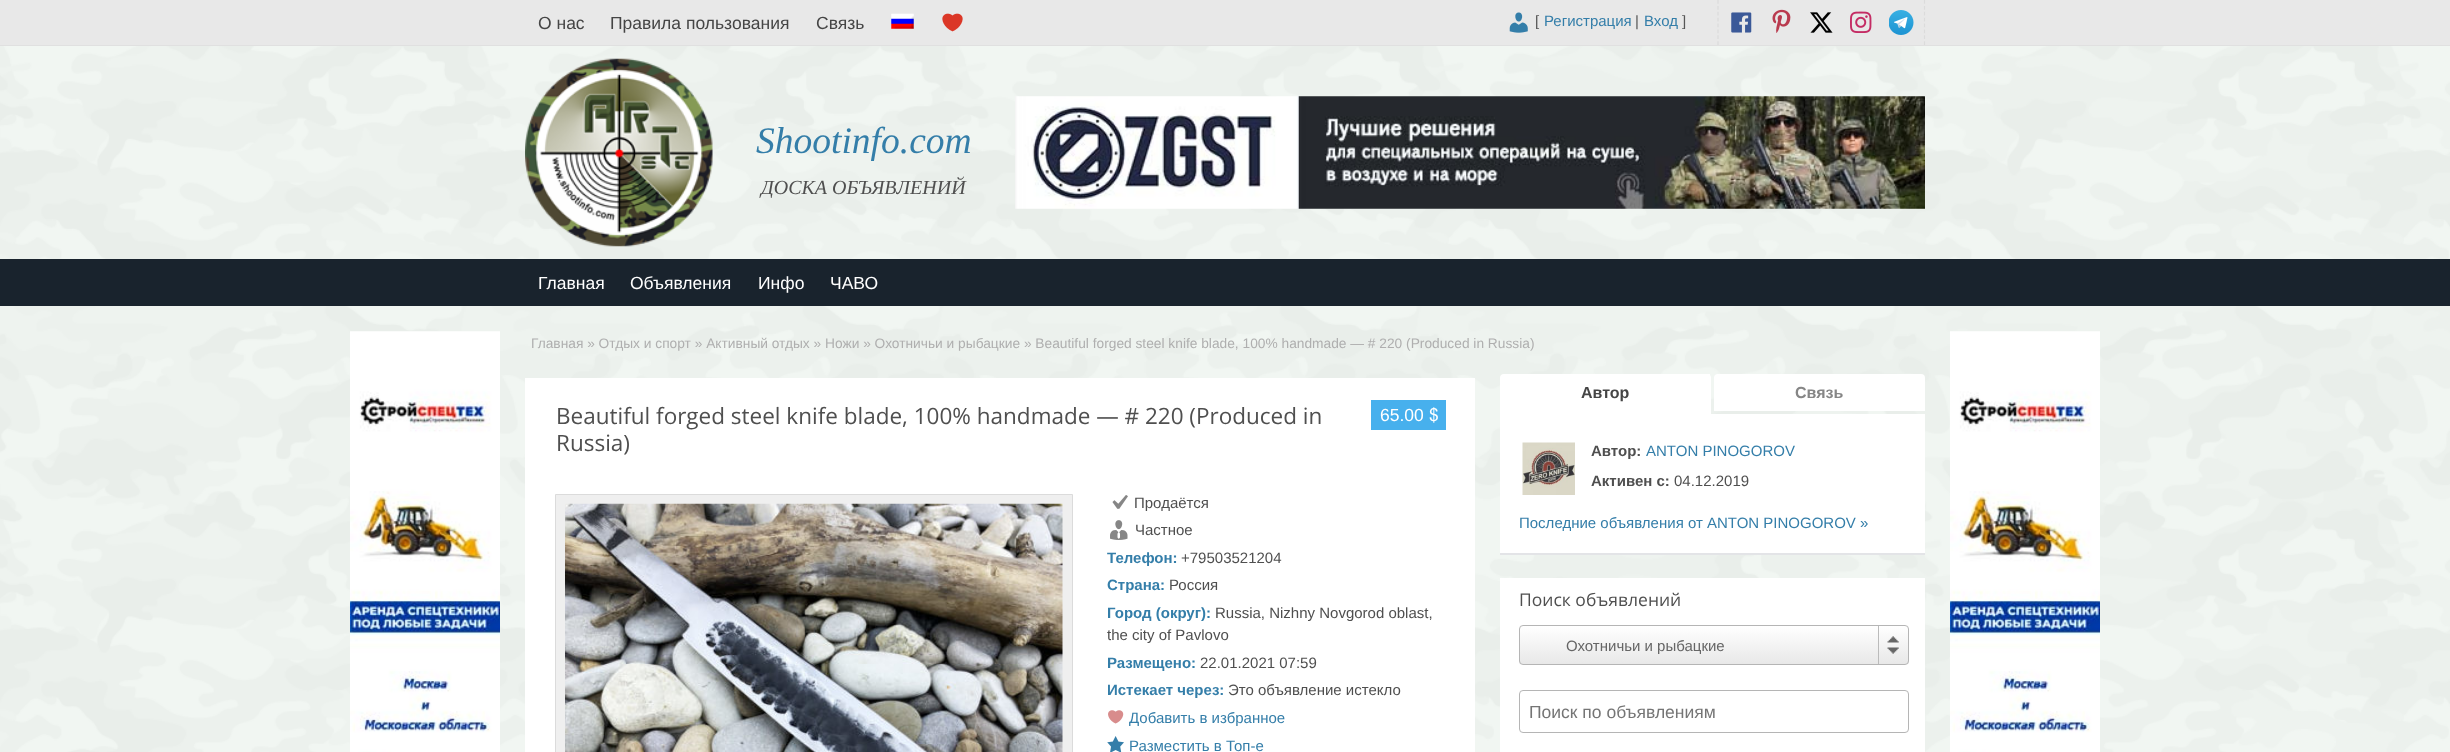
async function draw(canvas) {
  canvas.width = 2450
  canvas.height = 752
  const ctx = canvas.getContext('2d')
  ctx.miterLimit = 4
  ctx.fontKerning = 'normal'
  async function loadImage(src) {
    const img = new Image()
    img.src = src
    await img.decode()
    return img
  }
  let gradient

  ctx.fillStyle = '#f3f8f4'
  ctx.fillRect(0, 0, 2450, 752)
  ctx.drawImage(await loadImage('image0.png'), 0, 46, 2450, 706)
  ctx.fillStyle = '#e8e8e8'
  ctx.fillRect(0, 0, 2450, 45)
  ctx.fillStyle = '#e0e0e0'
  ctx.fillRect(0, 45, 2450, 1)
  ctx.font = '17.5px Liberation Sans'
  ctx.fillStyle = '#454545'
  ctx.fillText('О нас', 538, 29)
  ctx.fillText('Правила пользования', 610, 29)
  ctx.fillText('Связь', 816, 29)
  ctx.drawImage(await loadImage('image1.png'), 891, 13, 23, 16)
  ctx.drawImage(await loadImage('image2.png'), 942, 13, 21, 19)
  ctx.drawImage(await loadImage('image3.png'), 1509, 12, 19, 21)
  ctx.font = '15px Liberation Sans'
  ctx.fillStyle = '#565656'
  ctx.fillText('[', 1535, 26)
  ctx.fillStyle = '#347ea9'
  ctx.fillText('Регистрация', 1544, 26)
  ctx.fillStyle = '#565656'
  ctx.fillText('|', 1635, 26)
  ctx.fillStyle = '#347ea9'
  ctx.fillText('Вход', 1644, 26)
  ctx.fillStyle = '#565656'
  ctx.fillText(']', 1682, 26)
  ctx.beginPath()
  ctx.moveTo(1924.5, 0)
  ctx.lineTo(1924.5, 45)
  ctx.strokeStyle = '#dbdbdb'
  ctx.lineWidth = 1.2
  ctx.setLineDash([3.75, 2.14])
  ctx.stroke()
  ctx.beginPath()
  ctx.moveTo(1718, 0)
  ctx.lineTo(1718, 45)
  ctx.stroke()
  ctx.drawImage(await loadImage('image4.png'), 1731, 12, 21, 21)
  ctx.drawImage(await loadImage('image5.png'), 1772, 9, 19, 24)
  ctx.drawImage(await loadImage('image6.png'), 1810, 12, 23, 21)
  ctx.drawImage(await loadImage('image7.png'), 1850, 11, 22, 22)
  ctx.drawImage(await loadImage('image8.png'), 1889, 10, 25, 25)
  ctx.drawImage(await loadImage('image9.png'), 525, 58, 188, 189)
  ctx.font = 'italic 37.5px Liberation Serif'
  ctx.fillStyle = '#347ea9'
  ctx.fillText('Shootinfo.com', 756, 153)
  ctx.font = 'italic 20px Liberation Serif'
  ctx.fillStyle = '#4f4f4f'
  ctx.fillText('ДОСКА ОБЪЯВЛЕНИЙ', 761, 194)
  ctx.drawImage(await loadImage('image10.png'), 1015, 96, 910, 113)
  ctx.fillStyle = '#19232d'
  ctx.fillRect(0, 259, 2450, 47)
  ctx.font = '17.5px Liberation Sans'
  ctx.fillStyle = '#fff'
  ctx.fillText('Главная', 538, 289)
  ctx.fillText('Объявления', 630, 289)
  ctx.fillText('Инфо', 758, 289)
  ctx.fillText('ЧАВО', 830, 289)
  ctx.drawImage(await loadImage('image11.png'), 350, 331, 150, 421)
  ctx.drawImage(await loadImage('image12.png'), 1950, 331, 150, 421)
  ctx.font = '13.75px Liberation Sans'
  ctx.fillStyle = '#afafaf'
  ctx.fillText('Главная » Отдых и спорт » Активный отдых » Ножи » Охотничьи и рыбацкие » Beautiful forged steel knife blade, 100% handmade — # 220 (Produced in Russia)', 531, 348)
  ctx.fillStyle = '#fff'
  ctx.fillRect(525, 378, 950, 374)
  ctx.font = '22.5px Open Sans'
  ctx.fillStyle = '#4f4f4f'
  ctx.fillText('Beautiful forged steel knife blade, 100% handmade — # 220 (Produced in', 556, 424)
  ctx.fillText('Russia)', 556, 451)
  ctx.fillStyle = '#47b0ed'
  ctx.fillRect(1371, 400, 75, 30)
  ctx.font = '17.5px Liberation Sans'
  ctx.fillStyle = '#fff'
  ctx.fillText('65.00', 1380, 421)
  ctx.font = '17.5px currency'
  ctx.fillText('$', 1429, 421)
  ctx.fillStyle = '#efefef'
  ctx.beginPath()
  ctx.rect(555.5, 494.5, 517, 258)
  ctx.fill()
  ctx.lineWidth = 1
  ctx.setLineDash([])
  ctx.stroke()
  ctx.drawImage(await loadImage('image13.png'), 565, 503, 498, 249)
  ctx.drawImage(await loadImage('image14.png'), 1112, 495, 16, 14)
  ctx.font = '15px Liberation Sans'
  ctx.fillStyle = '#4f4f4f'
  ctx.fillText('Продаётся', 1134, 508)
  ctx.drawImage(await loadImage('image15.png'), 1110, 520, 18, 20)
  ctx.fillText('Частное', 1135, 535)
  ctx.font = 'bold 15px Liberation Sans'
  ctx.fillStyle = '#347ea9'
  ctx.fillText('Телефон:', 1107, 563)
  ctx.font = '15px Liberation Sans'
  ctx.fillStyle = '#4f4f4f'
  ctx.fillText('+79503521204', 1181, 563)
  ctx.font = 'bold 15px Liberation Sans'
  ctx.fillStyle = '#347ea9'
  ctx.fillText('Страна:', 1107, 590)
  ctx.font = '15px Liberation Sans'
  ctx.fillStyle = '#4f4f4f'
  ctx.fillText('Россия', 1169, 590)
  ctx.font = 'bold 15px Liberation Sans'
  ctx.fillStyle = '#347ea9'
  ctx.fillText('Город (округ):', 1107, 618)
  ctx.font = '15px Liberation Sans'
  ctx.fillStyle = '#4f4f4f'
  ctx.fillText('Russia, Nizhny Novgorod oblast,', 1215, 618)
  ctx.fillText('the city of Pavlovo', 1107, 640)
  ctx.font = 'bold 15px Liberation Sans'
  ctx.fillStyle = '#347ea9'
  ctx.fillText('Размещено:', 1107, 668)
  ctx.font = '15px Liberation Sans'
  ctx.fillStyle = '#4f4f4f'
  ctx.fillText('22.01.2021 07:59', 1200, 668)
  ctx.font = 'bold 15px Liberation Sans'
  ctx.fillStyle = '#347ea9'
  ctx.fillText('Истекает через:', 1107, 695)
  ctx.font = '15px Liberation Sans'
  ctx.fillStyle = '#4f4f4f'
  ctx.fillText('Это объявление истекло', 1228, 695)
  ctx.drawImage(await loadImage('image16.png'), 1108, 710, 16, 14)
  ctx.fillStyle = '#347ea9'
  ctx.fillText('Добавить в избранное', 1129, 723)
  ctx.drawImage(await loadImage('image17.png'), 1107, 736, 17, 16)
  ctx.fillText('Разместить в Топ-е', 1129, 751)
  ctx.fillStyle = '#fff'
  ctx.fillRect(1500, 414, 425, 139)
  ctx.beginPath()
  ctx.roundRect(1500, 374, 211, 42, [4, 4, 0, 0])
  ctx.fill()
  ctx.fillRect(1708, 374, 2, 1)
  ctx.font = 'bold 16px Liberation Sans'
  ctx.fillStyle = '#454545'
  ctx.fillText('Автор', 1581, 398)
  ctx.fillStyle = '#fff'
  ctx.beginPath()
  ctx.roundRect(1714, 374, 211, 37, [4, 4, 0, 0])
  ctx.fill()
  ctx.fillStyle = '#868686'
  ctx.fillText('Связь', 1795, 398)
  ctx.fillStyle = '#e3e4e7'
  ctx.fillRect(1500, 553, 425, 2)
  ctx.drawImage(await loadImage('image18.png'), 1522, 442, 53, 53)
  ctx.font = 'bold 15px Liberation Sans'
  ctx.fillStyle = '#4f4f4f'
  ctx.fillText('Автор:', 1591, 456)
  ctx.font = '15px Liberation Sans'
  ctx.fillStyle = '#347ea9'
  ctx.fillText('ANTON PINOGOROV', 1646, 456)
  ctx.font = 'bold 15px Liberation Sans'
  ctx.fillStyle = '#4f4f4f'
  ctx.fillText('Активен с:', 1591, 486)
  ctx.font = '15px Liberation Sans'
  ctx.fillText('04.12.2019', 1674, 486)
  ctx.fillStyle = '#347ea9'
  ctx.fillText('Последние объявления от ANTON PINOGOROV »', 1519, 528)
  ctx.fillStyle = '#fff'
  ctx.fillRect(1500, 578, 425, 174)
  ctx.font = '17.5px Open Sans'
  ctx.fillStyle = '#4f4f4f'
  ctx.fillText('Поиск объявлений', 1519, 606)
  ctx.save()
  ctx.beginPath()
  ctx.roundRect(1519, 625, 390, 40, 4)
  ctx.clip()
  gradient = ctx.createLinearGradient(1714, 626, 1714, 664)
  gradient.addColorStop(0, '#fff')
  gradient.addColorStop(1, '#e8e8e8')
  ctx.fillStyle = gradient
  ctx.fillRect(1519, 626, 390, 38)
  ctx.restore()
  ctx.beginPath()
  ctx.roundRect(1519.5, 625.5, 389, 39, 3.5)
  ctx.strokeStyle = '#b5b5b5'
  ctx.stroke()
  ctx.font = '15px Liberation Sans'
  ctx.fillStyle = '#666'
  ctx.fillText('Охотничьи и рыбацкие', 1566, 651)
  ctx.drawImage(await loadImage('image19.png'), 1887, 636, 12, 18)
  ctx.fillStyle = '#bbb'
  ctx.fillRect(1878, 626, 1, 38)
  ctx.beginPath()
  ctx.roundRect(1519.5, 690.5, 389, 42, 3.5)
  ctx.stroke()
  ctx.font = '17.5px Liberation Sans'
  ctx.fillStyle = '#757575'
  ctx.fillText('Поиск по объявлениям', 1529, 718)
}

draw(document.querySelector('canvas'))
